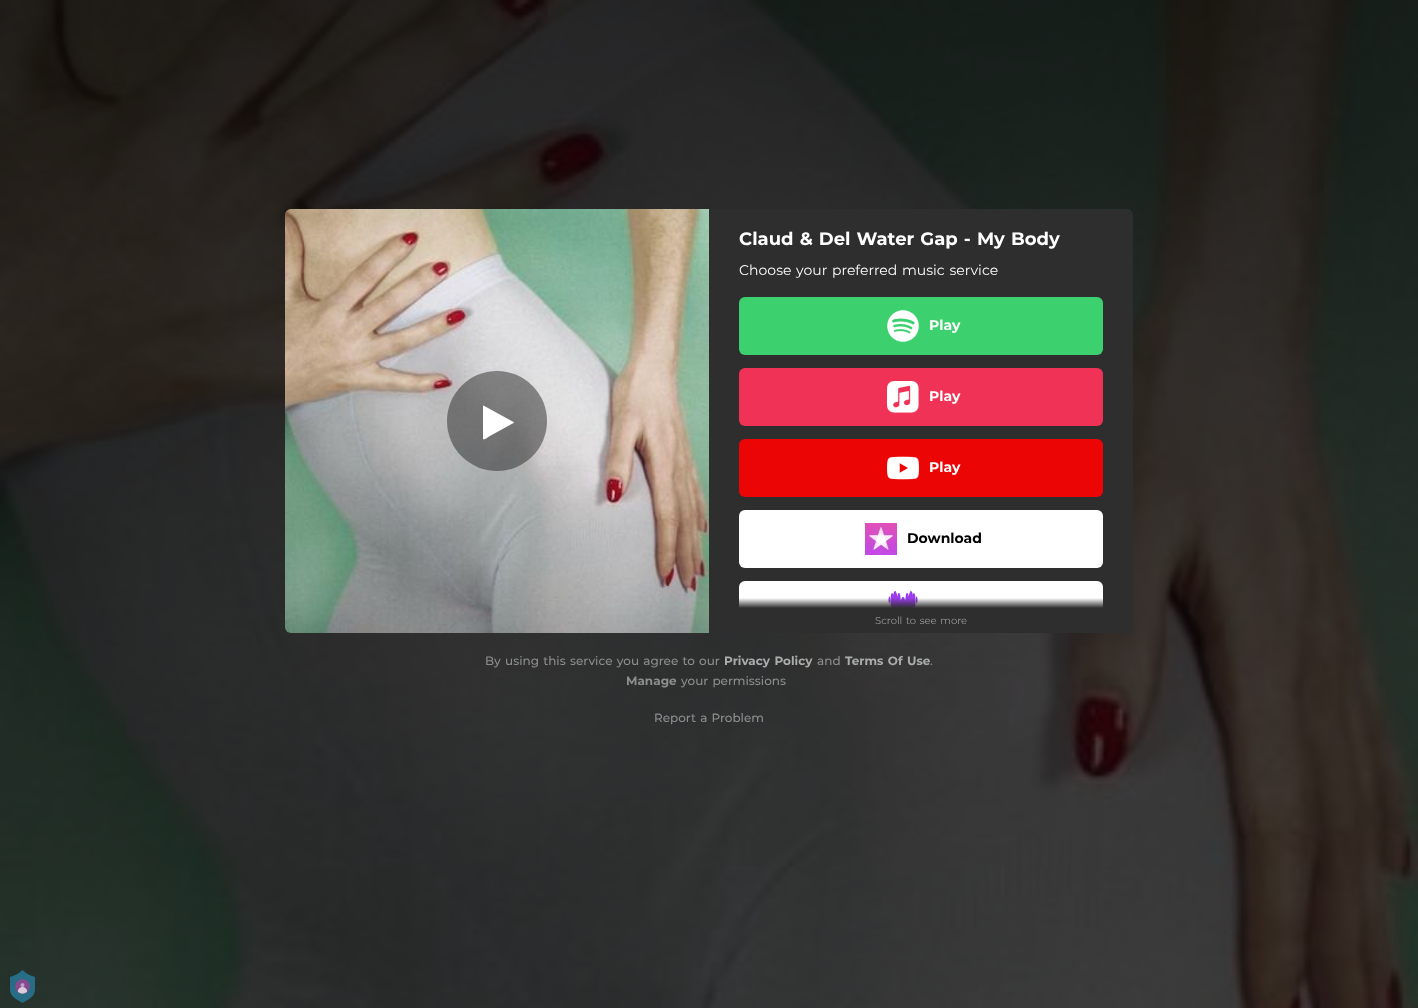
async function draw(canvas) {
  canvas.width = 1418
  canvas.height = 1008
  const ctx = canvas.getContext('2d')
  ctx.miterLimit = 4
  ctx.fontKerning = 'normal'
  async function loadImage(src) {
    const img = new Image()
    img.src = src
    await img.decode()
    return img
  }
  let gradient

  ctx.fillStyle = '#fff'
  ctx.fillRect(0, 0, 1418, 1008)
  ctx.drawImage(await loadImage('image0.png'), 0, 0, 1418, 1008)
  ctx.drawImage(await loadImage('image1.png'), 285, 209, 424, 424)
  ctx.fillStyle = '#28282880'
  ctx.beginPath()
  ctx.arc(497, 421, 50, 0, 2 * Math.PI)
  ctx.fill()
  ctx.fillStyle = '#fff'
  ctx.beginPath()
  ctx.moveTo(513.5, 423)
  ctx.lineTo(489, 436.5)
  ctx.bezierCurveTo(488.5, 437, 484, 440.5, 483, 439)
  ctx.lineTo(483, 406)
  ctx.lineTo(483.5, 405.5)
  ctx.lineTo(513.5, 422)
  ctx.lineTo(514, 422.5)
  ctx.lineTo(513.5, 423)
  ctx.fill()
  ctx.fillStyle = '#2e2e2e'
  ctx.beginPath()
  ctx.roundRect(709, 209, 424, 424, [0, 6, 6, 0])
  ctx.fill()
  ctx.wordSpacing = '1px'
  ctx.font = 'bold 18px Montserrat'
  ctx.fillStyle = '#fff'
  ctx.fillText('Claud & Del Water Gap - My Body', 739, 245)
  ctx.font = '14px Montserrat'
  ctx.fillText('Choose your preferred music service', 739, 275)
  ctx.fillStyle = '#3cd16e'
  ctx.beginPath()
  ctx.roundRect(739, 297, 364, 58, 6)
  ctx.fill()
  ctx.drawImage(await loadImage('image2.png'), 887, 310, 32, 32)
  ctx.wordSpacing = '0px'
  ctx.font = 'bold 14px Montserrat'
  ctx.fillStyle = '#fff'
  ctx.fillText('Play', 929, 330)
  ctx.fillStyle = '#ef3256'
  ctx.beginPath()
  ctx.roundRect(739, 368, 364, 58, 6)
  ctx.fill()
  ctx.drawImage(await loadImage('image3.png'), 887, 381, 32, 32)
  ctx.fillStyle = '#fff'
  ctx.fillText('Play', 929, 401)
  ctx.fillStyle = '#eb0505'
  ctx.beginPath()
  ctx.roundRect(739, 439, 364, 58, 6)
  ctx.fill()
  ctx.drawImage(await loadImage('image4.png'), 887, 456, 32, 24)
  ctx.fillStyle = '#fff'
  ctx.fillText('Play', 929, 472)
  ctx.beginPath()
  ctx.roundRect(739, 510, 364, 58, 6)
  ctx.fill()
  ctx.drawImage(await loadImage('image5.png'), 865, 523, 32, 32)
  ctx.fillStyle = '#000'
  ctx.fillText('Download', 907, 543)
  ctx.fillStyle = '#fff'
  ctx.beginPath()
  ctx.roundRect(739, 581, 364, 52, [6, 6, 0, 0])
  ctx.fill()
  ctx.drawImage(await loadImage('image6.png'), 888, 591, 30, 17)
  gradient = ctx.createLinearGradient(921, 608, 921, 598)
  gradient.addColorStop(0, '#2e2e2e')
  gradient.addColorStop(1, '#2e2e2e00')
  ctx.fillStyle = gradient
  ctx.fillRect(739, 598, 364, 10)
  ctx.fillStyle = '#2e2e2e'
  ctx.fillRect(739, 608, 394, 25)
  ctx.wordSpacing = '1px'
  ctx.font = '10px Montserrat'
  ctx.fillStyle = '#999'
  ctx.fillText('Scroll to see more', 875, 624)
  ctx.font = '500 12px Montserrat'
  ctx.fillStyle = '#8d8d8e'
  ctx.fillText('By using this service you agree to our', 485, 665)
  ctx.font = 'bold 12px Montserrat'
  ctx.fillStyle = '#abacac'
  ctx.fillText('Privacy Policy', 724, 665)
  ctx.wordSpacing = '0px'
  ctx.font = '500 12px Montserrat'
  ctx.fillStyle = '#8d8d8e'
  ctx.fillText('and', 817, 665)
  ctx.wordSpacing = '1px'
  ctx.font = 'bold 12px Montserrat'
  ctx.fillStyle = '#abacac'
  ctx.fillText('Terms Of Use', 845, 665)
  ctx.wordSpacing = '0px'
  ctx.font = '500 12px Montserrat'
  ctx.fillStyle = '#8d8d8e'
  ctx.fillText('.', 930, 665)
  ctx.font = 'bold 12px Montserrat'
  ctx.fillText('Manage', 626, 685)
  ctx.wordSpacing = '1px'
  ctx.font = '500 12px Montserrat'
  ctx.fillText('your permissions', 681, 685)
  ctx.fillText('Report a Problem', 654, 722)
  ctx.drawImage(await loadImage('image7.png'), 10, 970, 25, 33)
}

draw(document.querySelector('canvas'))
